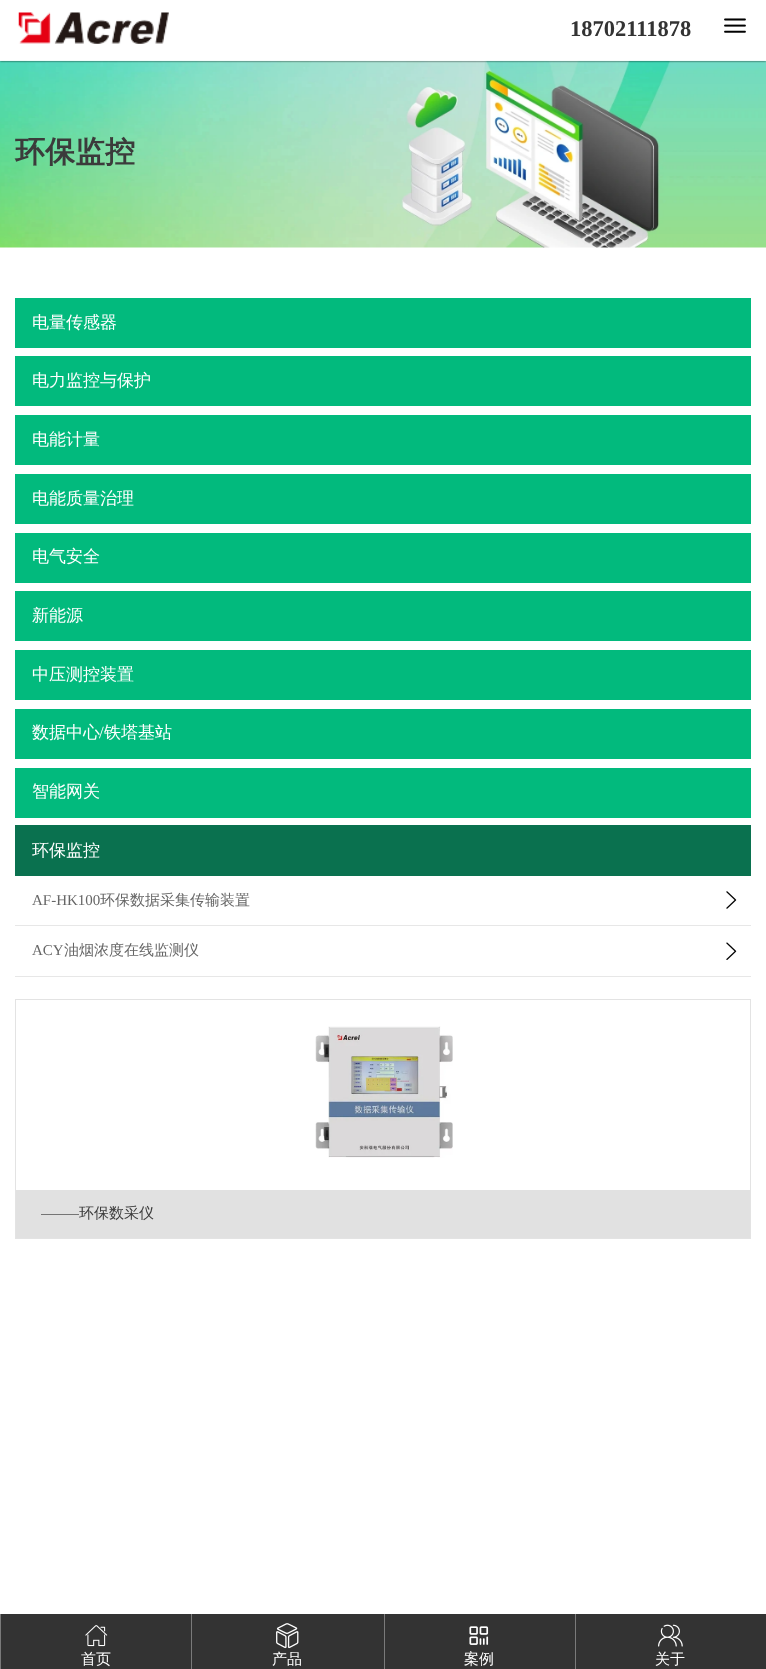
async function draw(canvas) {
  canvas.width = 766
  canvas.height = 1669
  const ctx = canvas.getContext('2d')
  ctx.miterLimit = 4
  ctx.fontKerning = 'normal'
  async function loadImage(src) {
    const img = new Image()
    img.src = src
    await img.decode()
    return img
  }

  ctx.fillStyle = '#fff'
  ctx.fillRect(0, 0, 766, 1669)
  ctx.drawImage(await loadImage('image2.png'), 0, 60, 766, 188)
  ctx.save()
  ctx.beginPath()
  ctx.rect(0, 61, 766, 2)
  ctx.clip()
  ctx.fillStyle = '#000000cc'
  ctx.filter = 'blur(1px)'
  ctx.beginPath()
  ctx.rect(0, 0, 766, 61)
  ctx.fill()
  ctx.filter = 'none'
  ctx.restore()
  ctx.fillStyle = '#ffffffe6'
  ctx.fillRect(0, 60, 766, 1)
  ctx.drawImage(await loadImage('image0.png'), 18, 12, 151, 32)
  ctx.font = 'bold 22.5px Liberation Serif'
  ctx.fillStyle = '#333'
  ctx.fillText('18702111878', 570, 36)
  ctx.drawImage(await loadImage('image1.png'), 724, 18, 22, 15)
  ctx.font = 'bold 30px WenQuanYi Zen Hei'
  ctx.fillStyle = '#3b3b3b'
  ctx.fillText('环保监控', 15, 162)
  ctx.fillStyle = '#02ba7d'
  ctx.fillRect(15, 298, 736, 50)
  ctx.font = '500 17px WenQuanYi Zen Hei'
  ctx.fillStyle = '#fff'
  ctx.fillText('电量传感器', 32, 328)
  ctx.fillStyle = '#02ba7d'
  ctx.fillRect(15, 356, 736, 50)
  ctx.fillStyle = '#fff'
  ctx.fillText('电力监控与保护', 32, 386)
  ctx.fillStyle = '#02ba7d'
  ctx.fillRect(15, 415, 736, 50)
  ctx.fillStyle = '#fff'
  ctx.fillText('电能计量', 32, 445)
  ctx.fillStyle = '#02ba7d'
  ctx.fillRect(15, 474, 736, 50)
  ctx.fillStyle = '#fff'
  ctx.fillText('电能质量治理', 32, 504)
  ctx.fillStyle = '#02ba7d'
  ctx.fillRect(15, 533, 736, 50)
  ctx.fillStyle = '#fff'
  ctx.fillText('电气安全', 32, 562)
  ctx.fillStyle = '#02ba7d'
  ctx.fillRect(15, 591, 736, 50)
  ctx.fillStyle = '#fff'
  ctx.fillText('新能源', 32, 621)
  ctx.fillStyle = '#02ba7d'
  ctx.fillRect(15, 650, 736, 50)
  ctx.fillStyle = '#fff'
  ctx.fillText('中压测控装置', 32, 680)
  ctx.fillStyle = '#02ba7d'
  ctx.fillRect(15, 709, 736, 50)
  ctx.fillStyle = '#fff'
  ctx.fillText('数据中心', 32, 738)
  ctx.font = '17px Liberation Serif'
  ctx.fillText('/', 99, 738)
  ctx.font = '500 17px WenQuanYi Zen Hei'
  ctx.fillText('铁塔基站', 104, 738)
  ctx.fillStyle = '#02ba7d'
  ctx.fillRect(15, 768, 736, 50)
  ctx.fillStyle = '#fff'
  ctx.fillText('智能网关', 32, 797)
  ctx.fillStyle = '#0a714f'
  ctx.fillRect(15, 825, 736, 51)
  ctx.fillStyle = '#fff'
  ctx.fillText('环保监控', 32, 856)
  ctx.fillStyle = '#e7e7e7'
  ctx.fillRect(15, 925, 736, 1)
  ctx.font = '15px Liberation Serif'
  ctx.fillStyle = '#666'
  ctx.fillText('AF-HK100', 32, 905)
  ctx.font = '500 15px WenQuanYi Zen Hei'
  ctx.fillText('环保数据采集传输装置', 100, 905)
  ctx.drawImage(await loadImage('image3.png'), 726, 891, 11, 18)
  ctx.fillStyle = '#e7e7e7'
  ctx.fillRect(15, 976, 736, 1)
  ctx.font = '15px Liberation Serif'
  ctx.fillStyle = '#666'
  ctx.fillText('ACY', 32, 955)
  ctx.font = '500 15px WenQuanYi Zen Hei'
  ctx.fillText('油烟浓度在线监测仪', 64, 955)
  ctx.drawImage(await loadImage('image4.png'), 726, 942, 11, 18)
  ctx.strokeStyle = '#e3e3e3'
  ctx.strokeRect(15.5, 999.5, 735, 239)
  ctx.drawImage(await loadImage('image5.png'), 315, 1026, 138, 132)
  ctx.fillStyle = '#e1e1e1'
  ctx.fillRect(16, 1190, 734, 48)
  ctx.fillStyle = '#757575'
  ctx.fillRect(41, 1214, 38, 1)
  ctx.fillStyle = '#3b3b3b'
  ctx.fillText('环保数采仪', 79, 1218)
  ctx.fillStyle = '#333'
  ctx.fillRect(1, 1614, 765, 55)
  ctx.fillStyle = '#7a7a7a'
  ctx.fillRect(0, 1614, 1, 55)
  ctx.drawImage(await loadImage('image6.png'), 85, 1625, 23, 22)
  ctx.fillStyle = '#fff'
  ctx.fillText('首页', 81, 1664)
  ctx.fillStyle = '#7a7a7a'
  ctx.fillRect(191, 1614, 1, 55)
  ctx.drawImage(await loadImage('image7.png'), 276, 1623, 23, 26)
  ctx.fillStyle = '#fff'
  ctx.fillText('产品', 272, 1664)
  ctx.fillStyle = '#7a7a7a'
  ctx.fillRect(384, 1614, 1, 55)
  ctx.drawImage(await loadImage('image8.png'), 469, 1626, 20, 19)
  ctx.fillStyle = '#fff'
  ctx.fillText('案例', 464, 1664)
  ctx.fillStyle = '#7a7a7a'
  ctx.fillRect(575, 1614, 1, 55)
  ctx.drawImage(await loadImage('image9.png'), 658, 1624, 25, 23)
  ctx.fillStyle = '#fff'
  ctx.fillText('关于', 655, 1664)
}

draw(document.querySelector('canvas'))
